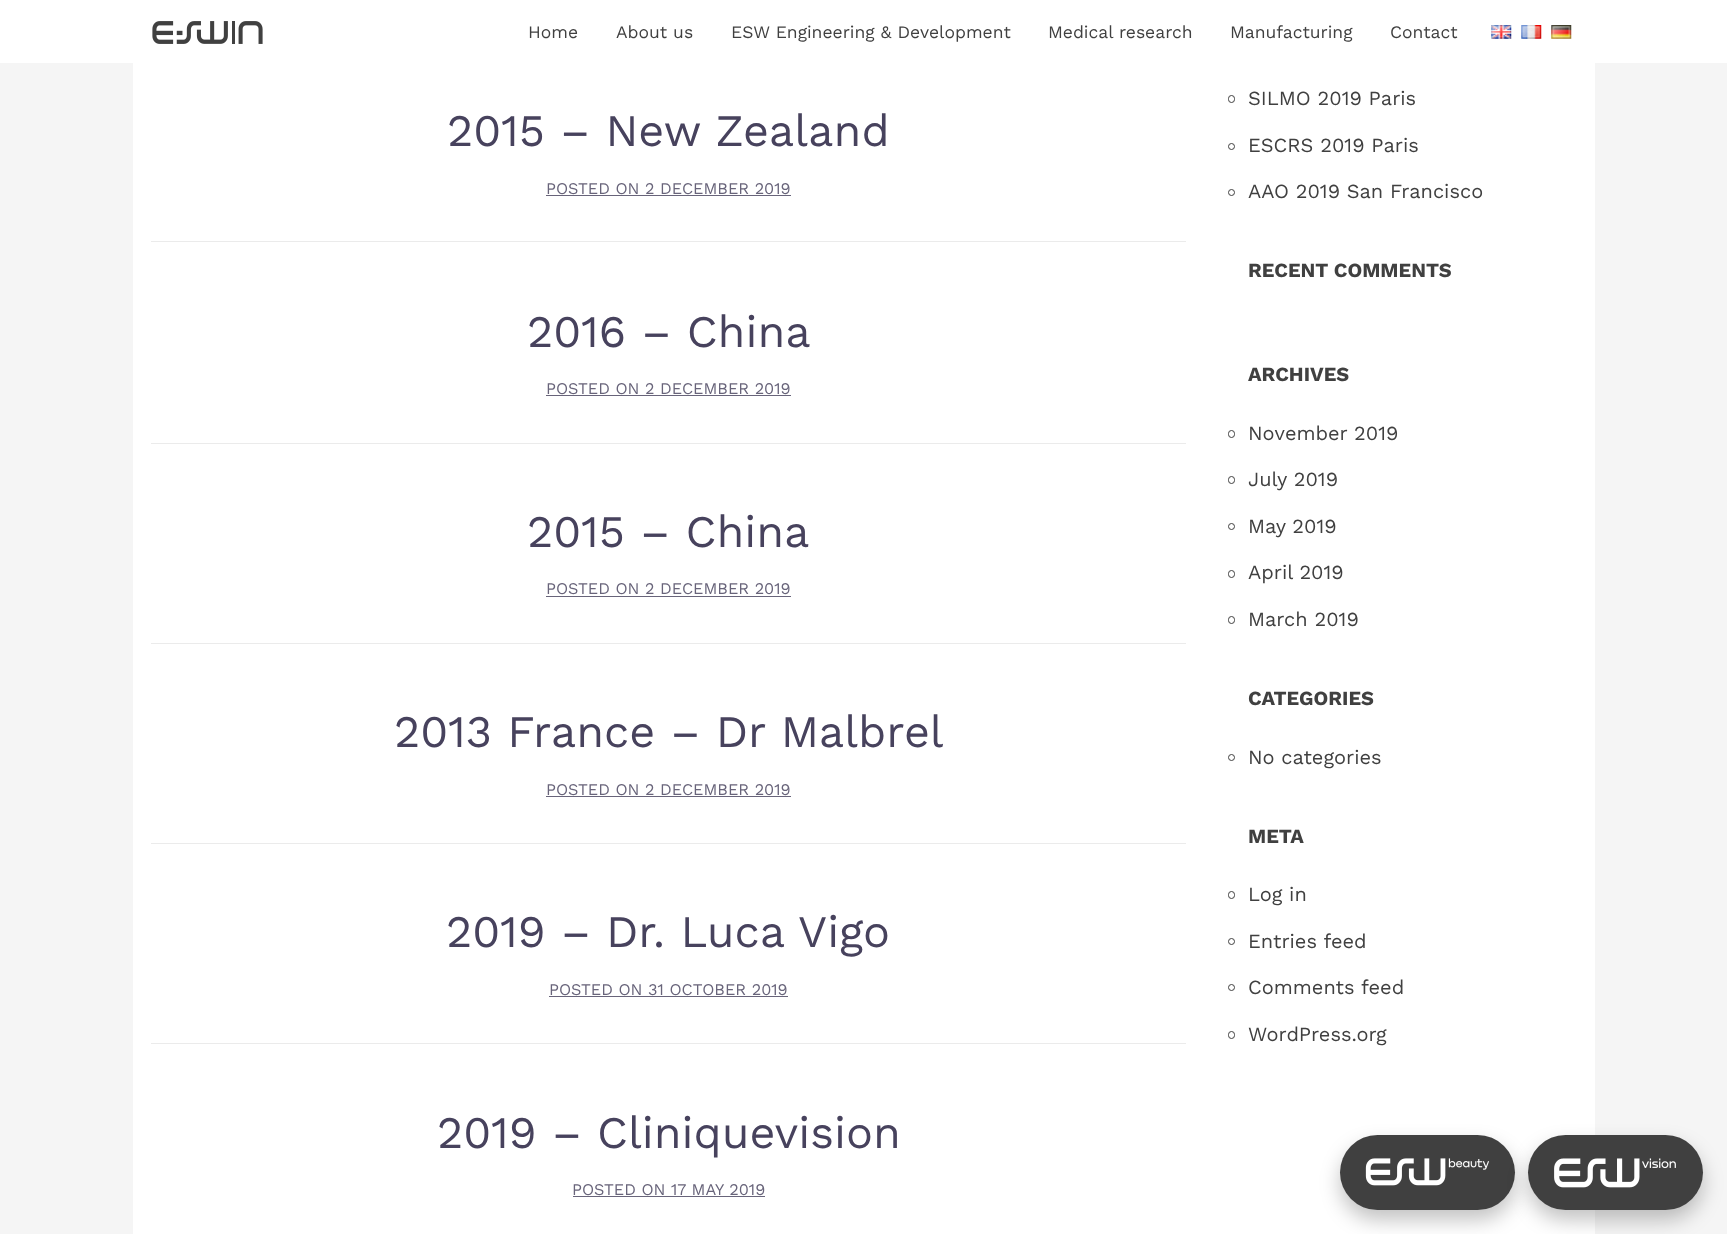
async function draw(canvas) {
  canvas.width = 1727
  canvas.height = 1234
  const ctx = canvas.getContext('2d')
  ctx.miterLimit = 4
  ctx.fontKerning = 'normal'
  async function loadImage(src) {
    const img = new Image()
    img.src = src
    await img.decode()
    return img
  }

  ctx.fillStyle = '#f5f5f5'
  ctx.fillRect(0, 0, 1727, 1234)
  ctx.fillStyle = '#fff'
  ctx.fillRect(0, 0, 1727, 63)
  ctx.drawImage(await loadImage('image0.png'), 152, 21, 111, 23)
  ctx.font = '17.5px Work Sans'
  ctx.fillStyle = '#404040'
  ctx.fillText('Home', 528, 38)
  ctx.fillText('About us', 616, 38)
  ctx.fillText('ESW Engineering & Development', 731, 38)
  ctx.fillText('Medical research', 1048, 38)
  ctx.fillText('Manufacturing', 1230, 38)
  ctx.fillText('Contact', 1390, 38)
  ctx.drawImage(await loadImage('image1.png'), 1491, 25, 21, 14)
  ctx.drawImage(await loadImage('image2.png'), 1521, 25, 21, 14)
  ctx.drawImage(await loadImage('image3.png'), 1551, 25, 21, 14)
  ctx.fillStyle = '#fff'
  ctx.fillRect(133, 63, 1462, 1171)
  ctx.fillStyle = '#ebebeb'
  ctx.fillRect(151, 241, 1035, 1)
  ctx.font = '45px Work Sans'
  ctx.fillStyle = '#47425d'
  ctx.fillText('2015 – New Zealand', 447, 146)
  ctx.font = '16.25px Work Sans'
  ctx.fillStyle = '#68647a'
  ctx.fillText('POSTED ON 2 DECEMBER 2019', 546, 194)
  ctx.fillRect(546, 195, 245, 1)
  ctx.fillStyle = '#ebebeb'
  ctx.fillRect(151, 443, 1035, 1)
  ctx.font = '45px Work Sans'
  ctx.fillStyle = '#47425d'
  ctx.fillText('2016 – China', 527, 347)
  ctx.font = '16.25px Work Sans'
  ctx.fillStyle = '#68647a'
  ctx.fillText('POSTED ON 2 DECEMBER 2019', 546, 394)
  ctx.fillRect(546, 395, 245, 1)
  ctx.fillStyle = '#ebebeb'
  ctx.fillRect(151, 643, 1035, 1)
  ctx.font = '45px Work Sans'
  ctx.fillStyle = '#47425d'
  ctx.fillText('2015 – China', 527, 547)
  ctx.font = '16.25px Work Sans'
  ctx.fillStyle = '#68647a'
  ctx.fillText('POSTED ON 2 DECEMBER 2019', 546, 594)
  ctx.fillRect(546, 596, 245, 1)
  ctx.fillStyle = '#ebebeb'
  ctx.fillRect(151, 843, 1035, 1)
  ctx.font = '45px Work Sans'
  ctx.fillStyle = '#47425d'
  ctx.fillText('2013 France – Dr Malbrel', 394, 747)
  ctx.font = '16.25px Work Sans'
  ctx.fillStyle = '#68647a'
  ctx.fillText('POSTED ON 2 DECEMBER 2019', 546, 795)
  ctx.fillRect(546, 796, 245, 1)
  ctx.fillStyle = '#ebebeb'
  ctx.fillRect(151, 1043, 1035, 1)
  ctx.font = '45px Work Sans'
  ctx.fillStyle = '#47425d'
  ctx.fillText('2019 – Dr. Luca Vigo', 446, 947)
  ctx.font = '16.25px Work Sans'
  ctx.fillStyle = '#68647a'
  ctx.fillText('POSTED ON 31 OCTOBER 2019', 549, 995)
  ctx.fillRect(549, 996, 239, 1)
  ctx.font = '45px Work Sans'
  ctx.fillStyle = '#47425d'
  ctx.fillText('2019 – Cliniquevision', 437, 1148)
  ctx.font = '16.25px Work Sans'
  ctx.fillStyle = '#68647a'
  ctx.fillText('POSTED ON', 572, 1195)
  ctx.fillRect(573, 1196, 192, 1)
  ctx.fillText('17 MAY 2019', 671, 1195)
  ctx.beginPath()
  ctx.roundRect(1228.5, 95.5, 6, 7, 3)
  ctx.strokeStyle = '#404040'
  ctx.stroke()
  ctx.font = '20px Work Sans'
  ctx.fillStyle = '#404040'
  ctx.fillText('SILMO 2019 Paris', 1248, 105)
  ctx.beginPath()
  ctx.arc(1231.5, 146.5, 3, 0, 2 * Math.PI)
  ctx.stroke()
  ctx.fillText('ESCRS 2019 Paris', 1248, 152)
  ctx.beginPath()
  ctx.arc(1231.5, 192.5, 3, 0, 2 * Math.PI)
  ctx.stroke()
  ctx.fillText('AAO 2019 San Francisco', 1248, 198)
  ctx.font = 'bold 20px Work Sans'
  ctx.fillText('RECENT COMMENTS', 1248, 277)
  ctx.fillText('ARCHIVES', 1248, 381)
  ctx.beginPath()
  ctx.roundRect(1228.5, 430.5, 6, 7, 3)
  ctx.stroke()
  ctx.font = '20px Work Sans'
  ctx.fillText('November 2019', 1248, 440)
  ctx.beginPath()
  ctx.roundRect(1228.5, 476.5, 6, 7, 3)
  ctx.stroke()
  ctx.fillText('July 2019', 1248, 486)
  ctx.beginPath()
  ctx.arc(1231.5, 526.5, 3, 0, 2 * Math.PI)
  ctx.stroke()
  ctx.fillText('May 2019', 1248, 533)
  ctx.beginPath()
  ctx.roundRect(1228.5, 570.5, 6, 7, 3)
  ctx.stroke()
  ctx.fillText('April 2019', 1248, 579)
  ctx.beginPath()
  ctx.roundRect(1228.5, 616.5, 6, 7, 3)
  ctx.stroke()
  ctx.fillText('March 2019', 1248, 626)
  ctx.font = 'bold 20px Work Sans'
  ctx.fillText('CATEGORIES', 1248, 705)
  ctx.beginPath()
  ctx.arc(1231.5, 757.5, 3, 0, 2 * Math.PI)
  ctx.stroke()
  ctx.font = '20px Work Sans'
  ctx.fillText('No categories', 1248, 764)
  ctx.font = 'bold 20px Work Sans'
  ctx.fillText('META', 1248, 843)
  ctx.beginPath()
  ctx.roundRect(1228.5, 891.5, 6, 7, 3)
  ctx.stroke()
  ctx.font = '20px Work Sans'
  ctx.fillText('Log in', 1248, 901)
  ctx.beginPath()
  ctx.arc(1231.5, 941.5, 3, 0, 2 * Math.PI)
  ctx.stroke()
  ctx.fillText('Entries feed', 1248, 948)
  ctx.beginPath()
  ctx.arc(1231.5, 987.5, 3, 0, 2 * Math.PI)
  ctx.stroke()
  ctx.fillText('Comments feed', 1248, 994)
  ctx.beginPath()
  ctx.roundRect(1228.5, 1031.5, 6, 7, 3)
  ctx.stroke()
  ctx.fillText('WordPress.org', 1248, 1041)
  ctx.fillStyle = '#0000003d'
  ctx.filter = 'blur(10px)'
  ctx.beginPath()
  ctx.roundRect(1340, 1145, 175, 75, 37.5)
  ctx.fill()
  ctx.filter = 'none'
  ctx.fillStyle = '#404040'
  ctx.beginPath()
  ctx.roundRect(1340, 1135, 175, 75, 37.5)
  ctx.fill()
  ctx.drawImage(await loadImage('image4.png'), 1365, 1158, 125, 28)
  ctx.fillStyle = '#0000003d'
  ctx.filter = 'blur(10px)'
  ctx.beginPath()
  ctx.roundRect(1528, 1145, 175, 75, 37.5)
  ctx.fill()
  ctx.filter = 'none'
  ctx.fillStyle = '#404040'
  ctx.beginPath()
  ctx.roundRect(1528, 1135, 175, 75, 37.5)
  ctx.fill()
  ctx.drawImage(await loadImage('image5.png'), 1554, 1158, 122, 30)
}

draw(document.querySelector('canvas'))
